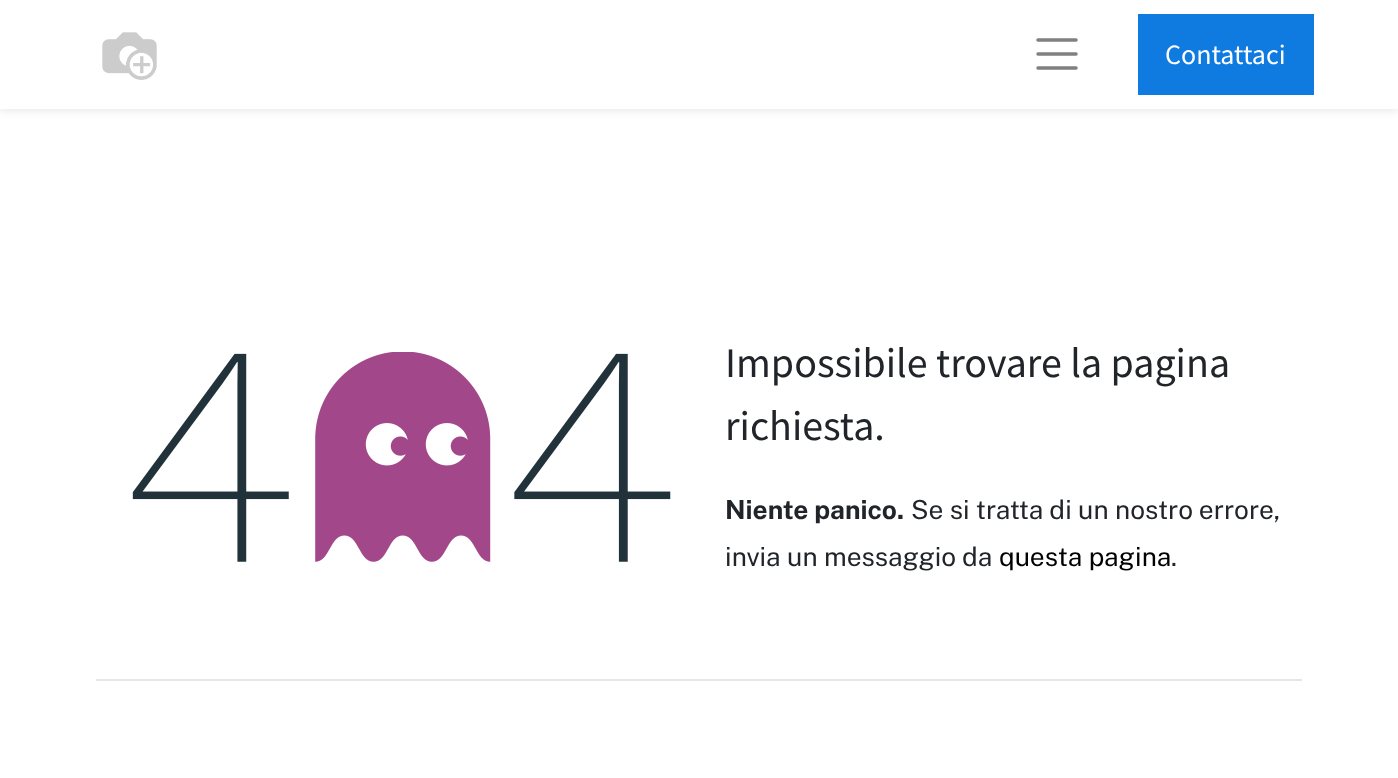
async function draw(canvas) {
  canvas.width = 1398
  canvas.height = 778
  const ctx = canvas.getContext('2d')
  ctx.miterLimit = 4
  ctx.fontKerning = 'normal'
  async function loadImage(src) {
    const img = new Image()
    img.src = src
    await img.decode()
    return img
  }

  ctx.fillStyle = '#fff'
  ctx.fillRect(0, 0, 1398, 778)
  ctx.fillStyle = '#00000012'
  ctx.filter = 'blur(3.5px)'
  ctx.beginPath()
  ctx.rect(0, 4, 1398, 108)
  ctx.fill()
  ctx.filter = 'none'
  ctx.fillStyle = '#fff'
  ctx.fillRect(0, 0, 1398, 109)
  ctx.drawImage(await loadImage('image0.png'), 102, 32, 55, 48)
  ctx.beginPath()
  ctx.moveTo(1038, 40)
  ctx.lineTo(1076, 40)
  ctx.moveTo(1038, 54)
  ctx.lineTo(1076, 54)
  ctx.moveTo(1038, 68)
  ctx.lineTo(1076, 68)
  ctx.strokeStyle = '#808080'
  ctx.lineWidth = 3.5
  ctx.lineCap = 'round'
  ctx.stroke()
  ctx.fillStyle = '#0f7adf'
  ctx.fillRect(1138, 14, 176, 81)
  ctx.font = '28px Source Sans Pro'
  ctx.fillStyle = '#fff'
  ctx.fillText('Contattaci', 1165, 64)
  ctx.drawImage(await loadImage('image1.png'), 132, 352, 539, 210)
  ctx.font = '42px Source Sans Pro'
  ctx.fillStyle = '#212529'
  ctx.fillText('Impossibile trovare la pagina', 725, 377)
  ctx.fillText('richiesta.', 725, 440)
  ctx.font = 'bold 26.25px Public Sans'
  ctx.fillText('Niente panico.', 725, 519)
  ctx.font = '26.25px Public Sans'
  ctx.fillText('Se si tratta di un nostro errore,', 911, 519)
  ctx.fillText('invia un messaggio da', 725, 566)
  ctx.fillStyle = '#000'
  ctx.fillText('questa pagina', 999, 566)
  ctx.fillStyle = '#212529'
  ctx.fillText('.', 1171, 566)
  ctx.fillStyle = '#e6e6e6'
  ctx.fillRect(96, 679, 1206, 2)
}

draw(document.querySelector('canvas'))
